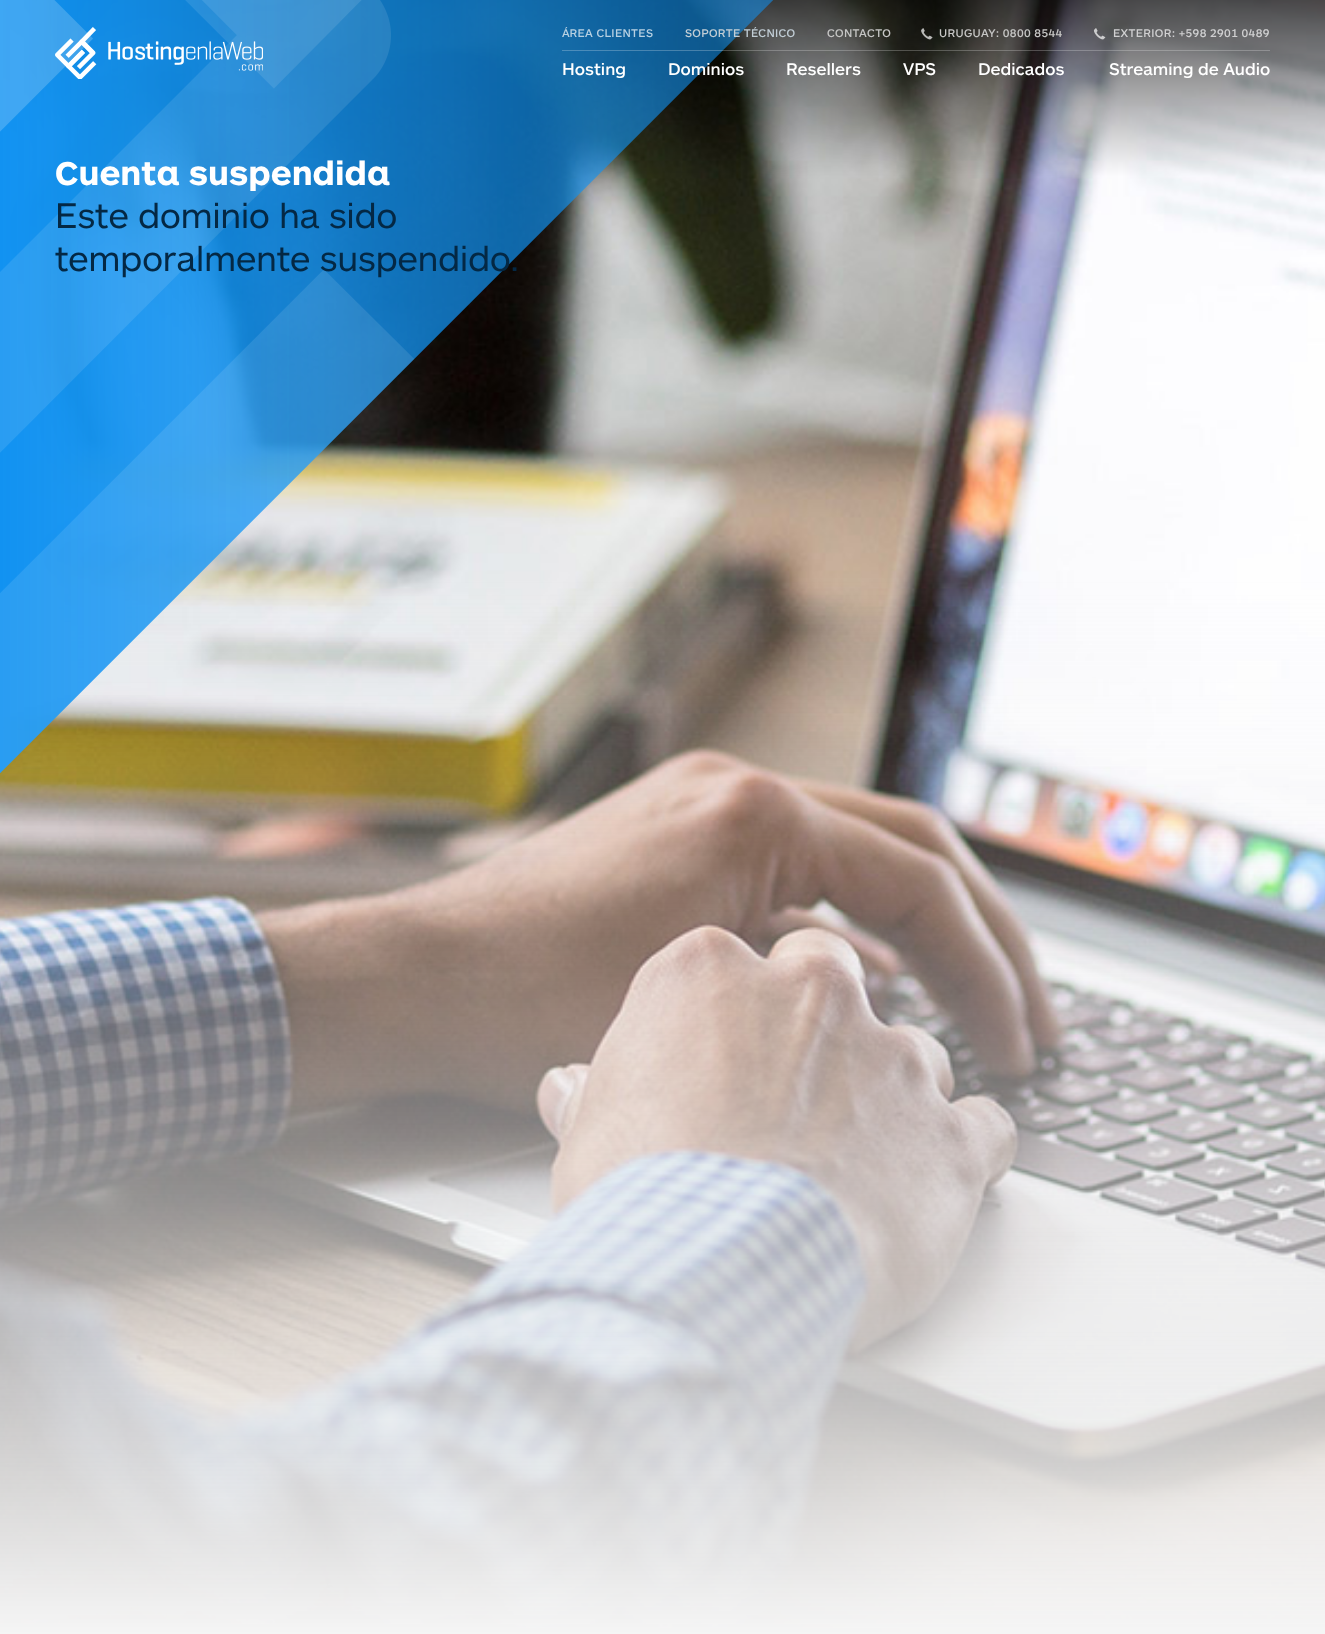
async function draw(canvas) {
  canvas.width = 1325
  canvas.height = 1634
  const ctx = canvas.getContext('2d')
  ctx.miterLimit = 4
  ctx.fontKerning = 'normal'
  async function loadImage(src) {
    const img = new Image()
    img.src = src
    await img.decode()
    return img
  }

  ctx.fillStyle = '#fff'
  ctx.fillRect(0, 0, 1325, 1634)
  ctx.drawImage(await loadImage('image3.png'), 0, 0, 1325, 1634)
  ctx.drawImage(await loadImage('image4.png'), 0, 0, 773, 773)
  ctx.drawImage(await loadImage('image0.png'), 55, 27, 208, 52)
  ctx.fillStyle = '#ffffff3d'
  ctx.fillRect(562, 50, 708, 1)
  ctx.letterSpacing = '0.35px'
  ctx.font = '500 11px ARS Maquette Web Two'
  ctx.fillStyle = '#b7d0e2'
  ctx.fillText('ÁREA CLIENTES', 562, 37)
  ctx.fillStyle = '#c1cdd5'
  ctx.fillText('SOPORTE TÉCNICO', 685, 37)
  ctx.fillStyle = '#c6c6c5'
  ctx.fillText('CONTACTO', 827, 37)
  ctx.drawImage(await loadImage('image1.png'), 921, 28, 12, 12)
  ctx.fillText('URUGUAY: 0800 8544', 939, 37)
  ctx.drawImage(await loadImage('image2.png'), 1093, 28, 13, 12)
  ctx.fillStyle = '#d0d0d1'
  ctx.fillText('EXTERIOR: +598 2901 0489', 1113, 37)
  ctx.letterSpacing = '0px'
  ctx.font = '500 16.75px ARS Maquette Web Two'
  ctx.fillStyle = '#fff'
  ctx.fillText('Hosting', 562, 75)
  ctx.fillText('Dominios', 668, 75)
  ctx.fillText('Resellers', 786, 75)
  ctx.fillText('VPS', 903, 75)
  ctx.fillText('Dedicados', 978, 75)
  ctx.fillText('Streaming de Audio', 1109, 75)
  ctx.font = 'bold 35.25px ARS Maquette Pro'
  ctx.fillText('Cuenta suspendida', 55, 185)
  ctx.font = '35.25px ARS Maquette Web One'
  ctx.fillStyle = '#042844'
  ctx.fillText('Este dominio ha sido', 55, 228)
  ctx.fillText('temporalmente suspendido.', 55, 271)
}

draw(document.querySelector('canvas'))
